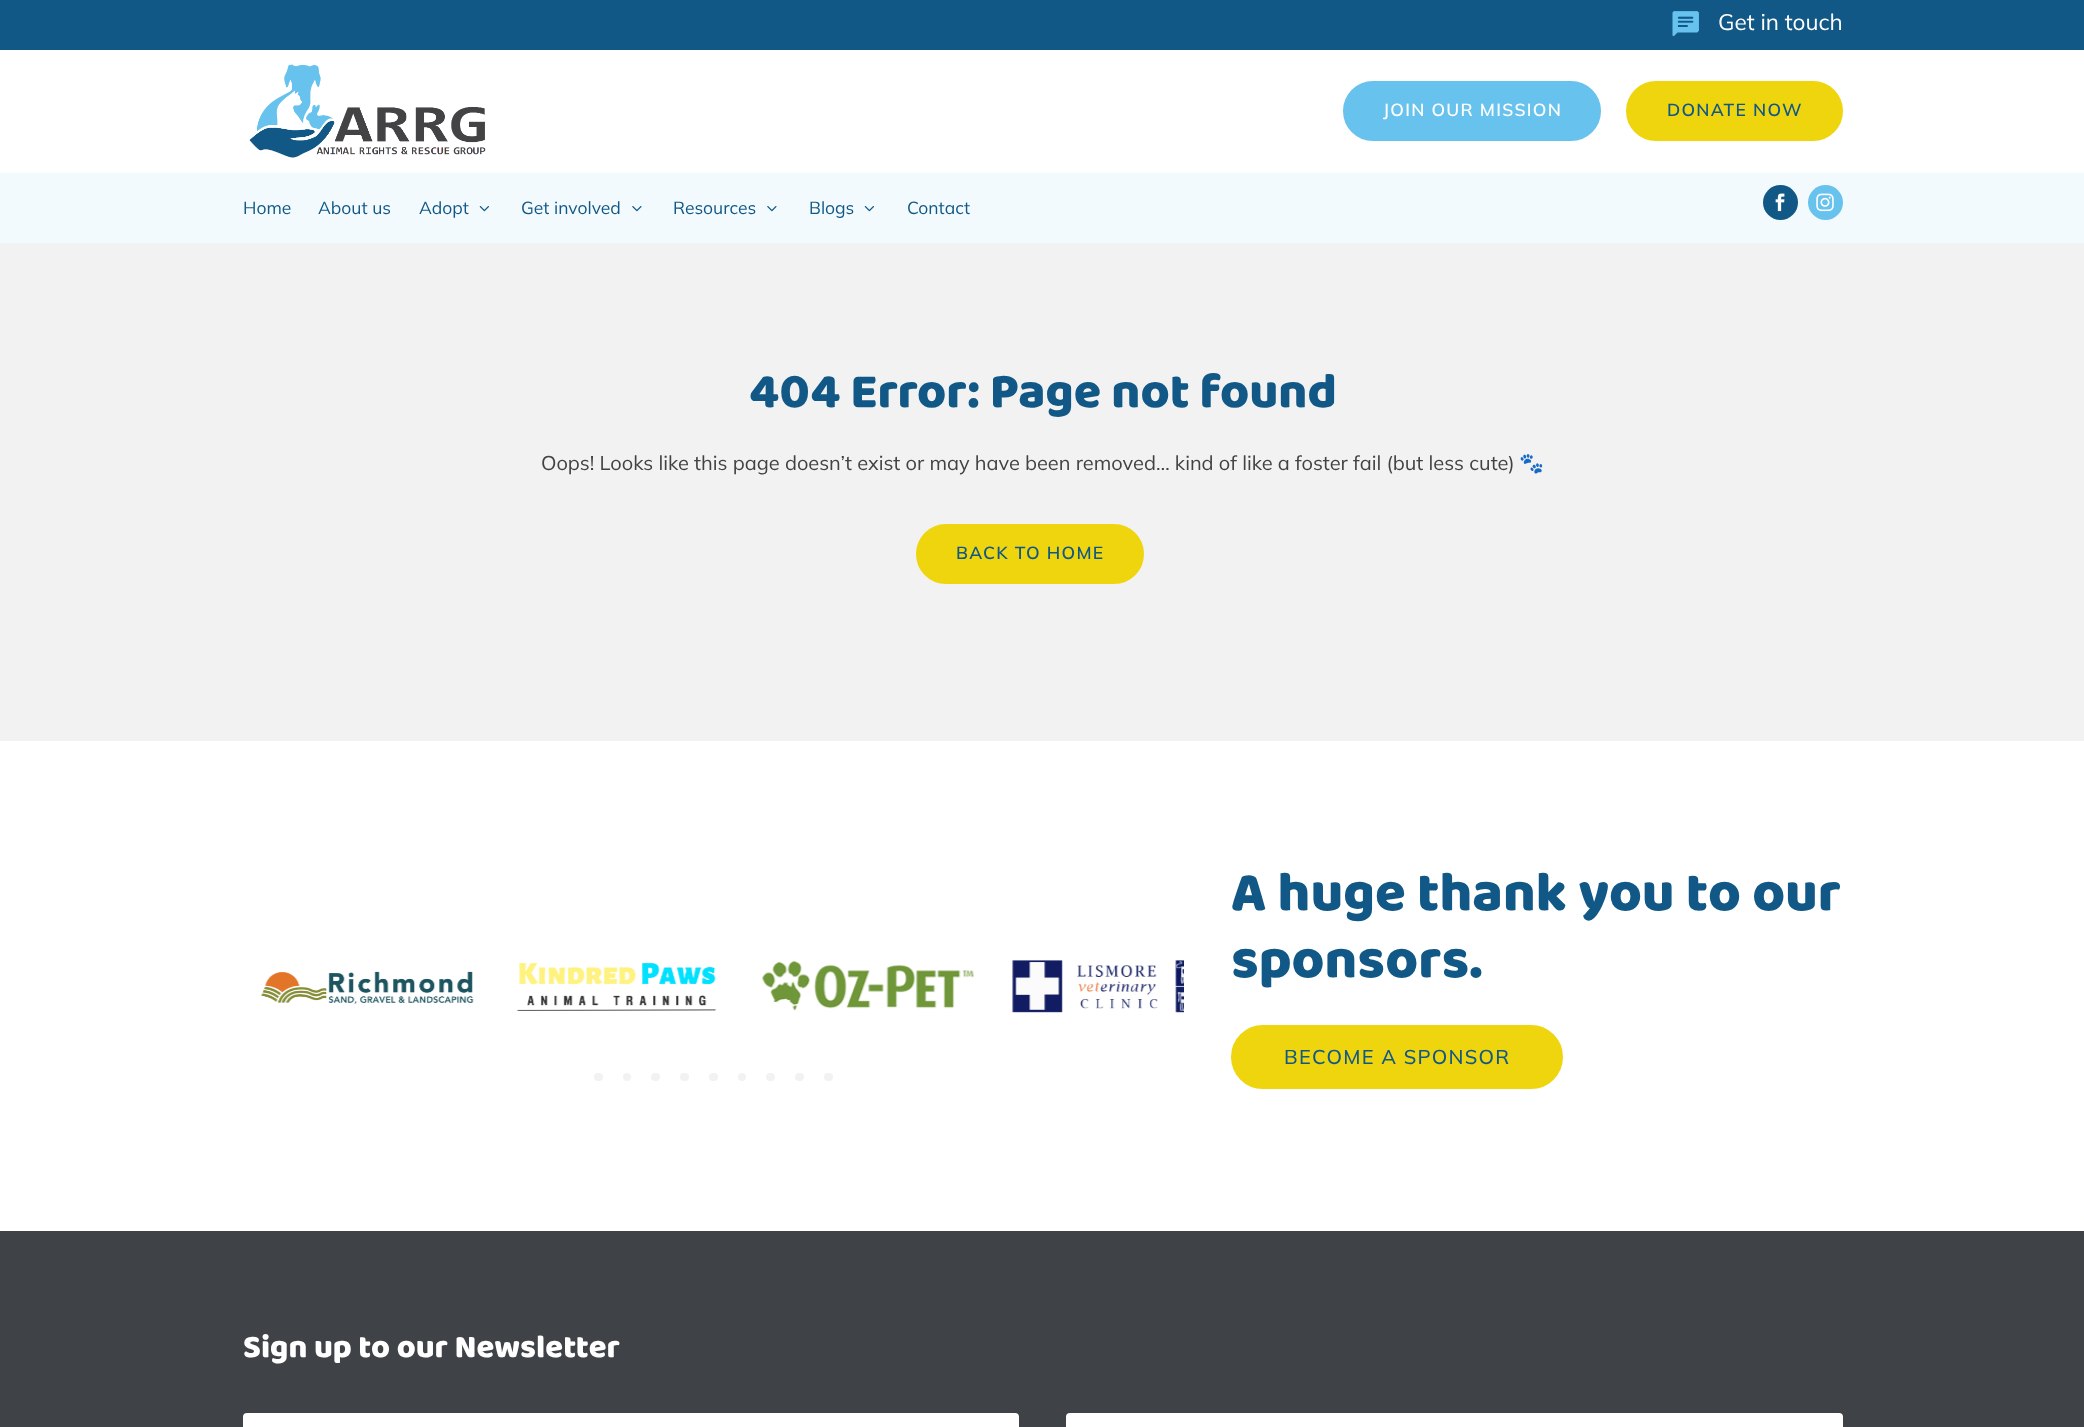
async function draw(canvas) {
  canvas.width = 2084
  canvas.height = 1427
  const ctx = canvas.getContext('2d')
  ctx.miterLimit = 4
  ctx.fontKerning = 'normal'
  async function loadImage(src) {
    const img = new Image()
    img.src = src
    await img.decode()
    return img
  }

  ctx.fillStyle = '#fff'
  ctx.fillRect(0, 0, 2084, 1427)
  ctx.fillStyle = '#115886'
  ctx.fillRect(0, 0, 2084, 50)
  ctx.drawImage(await loadImage('image0.png'), 1672, 11, 27, 26)
  ctx.font = '200 22.5px Mulish'
  ctx.fillStyle = '#fff'
  ctx.fillText('Get in touch', 1718, 30)
  ctx.drawImage(await loadImage('image1.png'), 249, 64, 237, 94)
  ctx.fillStyle = '#67c2ee'
  ctx.beginPath()
  ctx.roundRect(1344.5, 82.5, 255, 57, 28.5)
  ctx.fill()
  ctx.strokeStyle = '#67c2ee'
  ctx.lineWidth = 3
  ctx.stroke()
  ctx.letterSpacing = '1.25px'
  ctx.font = '200 17.5px "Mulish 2"'
  ctx.fillStyle = '#fff'
  ctx.fillText('JOIN OUR MISSION', 1383, 116)
  ctx.fillStyle = '#efd50e'
  ctx.beginPath()
  ctx.roundRect(1627.5, 82.5, 214, 57, 28.5)
  ctx.fill()
  ctx.strokeStyle = '#efd50e'
  ctx.stroke()
  ctx.fillStyle = '#115886'
  ctx.fillText('DONATE NOW', 1667, 116)
  ctx.fillStyle = '#f3fafd'
  ctx.fillRect(0, 173, 2084, 70)
  ctx.letterSpacing = '0px'
  ctx.font = '200 17.5px Mulish'
  ctx.fillStyle = '#115886'
  ctx.fillText('Home', 243, 214)
  ctx.fillText('About us', 318, 214)
  ctx.fillText('Adopt', 419, 214)
  ctx.drawImage(await loadImage('image2.png'), 479, 206, 10, 6)
  ctx.fillText('Get involved', 521, 214)
  ctx.drawImage(await loadImage('image3.png'), 632, 206, 10, 6)
  ctx.fillText('Resources', 673, 214)
  ctx.drawImage(await loadImage('image3.png'), 767, 206, 10, 6)
  ctx.fillText('Blogs', 809, 214)
  ctx.drawImage(await loadImage('image2.png'), 864, 206, 10, 6)
  ctx.fillText('Contact', 907, 214)
  ctx.beginPath()
  ctx.arc(1780.5, 202.5, 17.5, 0, 2 * Math.PI)
  ctx.fill()
  ctx.drawImage(await loadImage('image4.png'), 1775, 193, 10, 19)
  ctx.fillStyle = '#67c2ee'
  ctx.beginPath()
  ctx.arc(1825.5, 202.5, 17.5, 0, 2 * Math.PI)
  ctx.fill()
  ctx.drawImage(await loadImage('image5.png'), 1816, 193, 18, 19)
  ctx.fillStyle = '#f2f2f2'
  ctx.fillRect(0, 243, 2084, 498)
  ctx.font = '800 50px "Baloo 2"'
  ctx.fillStyle = '#115886'
  ctx.fillText('404 Error: Page not found', 749, 407)
  ctx.font = '200 20px Mulish'
  ctx.fillStyle = '#424245'
  ctx.fillText('Oops! Looks like this page doesn’t exist or may have been removed… kind of like a foster fail (but less cute)', 541, 470)
  ctx.font = '20px Noto Color Emoji'
  ctx.fillText('🐾', 1519, 470)
  ctx.fillStyle = '#efd50e'
  ctx.beginPath()
  ctx.roundRect(917.5, 525.5, 225, 57, 28.5)
  ctx.fill()
  ctx.stroke()
  ctx.letterSpacing = '1.25px'
  ctx.font = '200 17.5px "Mulish 2"'
  ctx.fillStyle = '#115886'
  ctx.fillText('BACK TO HOME', 956, 559)
  ctx.drawImage(await loadImage('image6.png'), 261, 971, 213, 33)
  ctx.drawImage(await loadImage('image7.png'), 517, 963, 200, 48)
  ctx.drawImage(await loadImage('image8.png'), 762, 961, 213, 50)
  ctx.drawImage(await loadImage('image9.png'), 1012, 960, 172, 53)
  ctx.fillStyle = '#f2f2f2'
  ctx.beginPath()
  ctx.roundRect(594, 1073, 9, 8, 4)
  ctx.fill()
  ctx.beginPath()
  ctx.arc(627, 1077, 4, 0, 2 * Math.PI)
  ctx.fill()
  ctx.beginPath()
  ctx.roundRect(651, 1073, 9, 8, 4)
  ctx.fill()
  ctx.beginPath()
  ctx.roundRect(680, 1073, 9, 8, 4)
  ctx.fill()
  ctx.beginPath()
  ctx.roundRect(709, 1073, 9, 8, 4)
  ctx.fill()
  ctx.beginPath()
  ctx.arc(742, 1077, 4, 0, 2 * Math.PI)
  ctx.fill()
  ctx.beginPath()
  ctx.roundRect(766, 1073, 9, 8, 4)
  ctx.fill()
  ctx.beginPath()
  ctx.roundRect(795, 1073, 9, 8, 4)
  ctx.fill()
  ctx.beginPath()
  ctx.roundRect(824, 1073, 9, 8, 4)
  ctx.fill()
  ctx.letterSpacing = '0px'
  ctx.font = '800 56.25px "Baloo 2"'
  ctx.fillStyle = '#115886'
  ctx.fillText('A huge thank you to our', 1231, 910)
  ctx.fillText('sponsors.', 1231, 977)
  ctx.fillStyle = '#efd50e'
  ctx.beginPath()
  ctx.roundRect(1232.5, 1026.5, 329, 61, 30.5)
  ctx.fill()
  ctx.stroke()
  ctx.letterSpacing = '1.25px'
  ctx.font = '200 20px "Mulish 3"'
  ctx.fillStyle = '#115886'
  ctx.fillText('BECOME A SPONSOR', 1284, 1064)
  ctx.fillStyle = '#3f4246'
  ctx.fillRect(0, 1231, 2084, 196)
  ctx.letterSpacing = '0px'
  ctx.font = '800 32.5px "Baloo 2"'
  ctx.fillStyle = '#fff'
  ctx.fillText('Sign up to our Newsletter', 243, 1357)
  ctx.beginPath()
  ctx.roundRect(243, 1413, 776, 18, 4)
  ctx.fill()
  ctx.beginPath()
  ctx.roundRect(1066, 1413, 777, 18, 4)
  ctx.fill()
}

draw(document.querySelector('canvas'))
